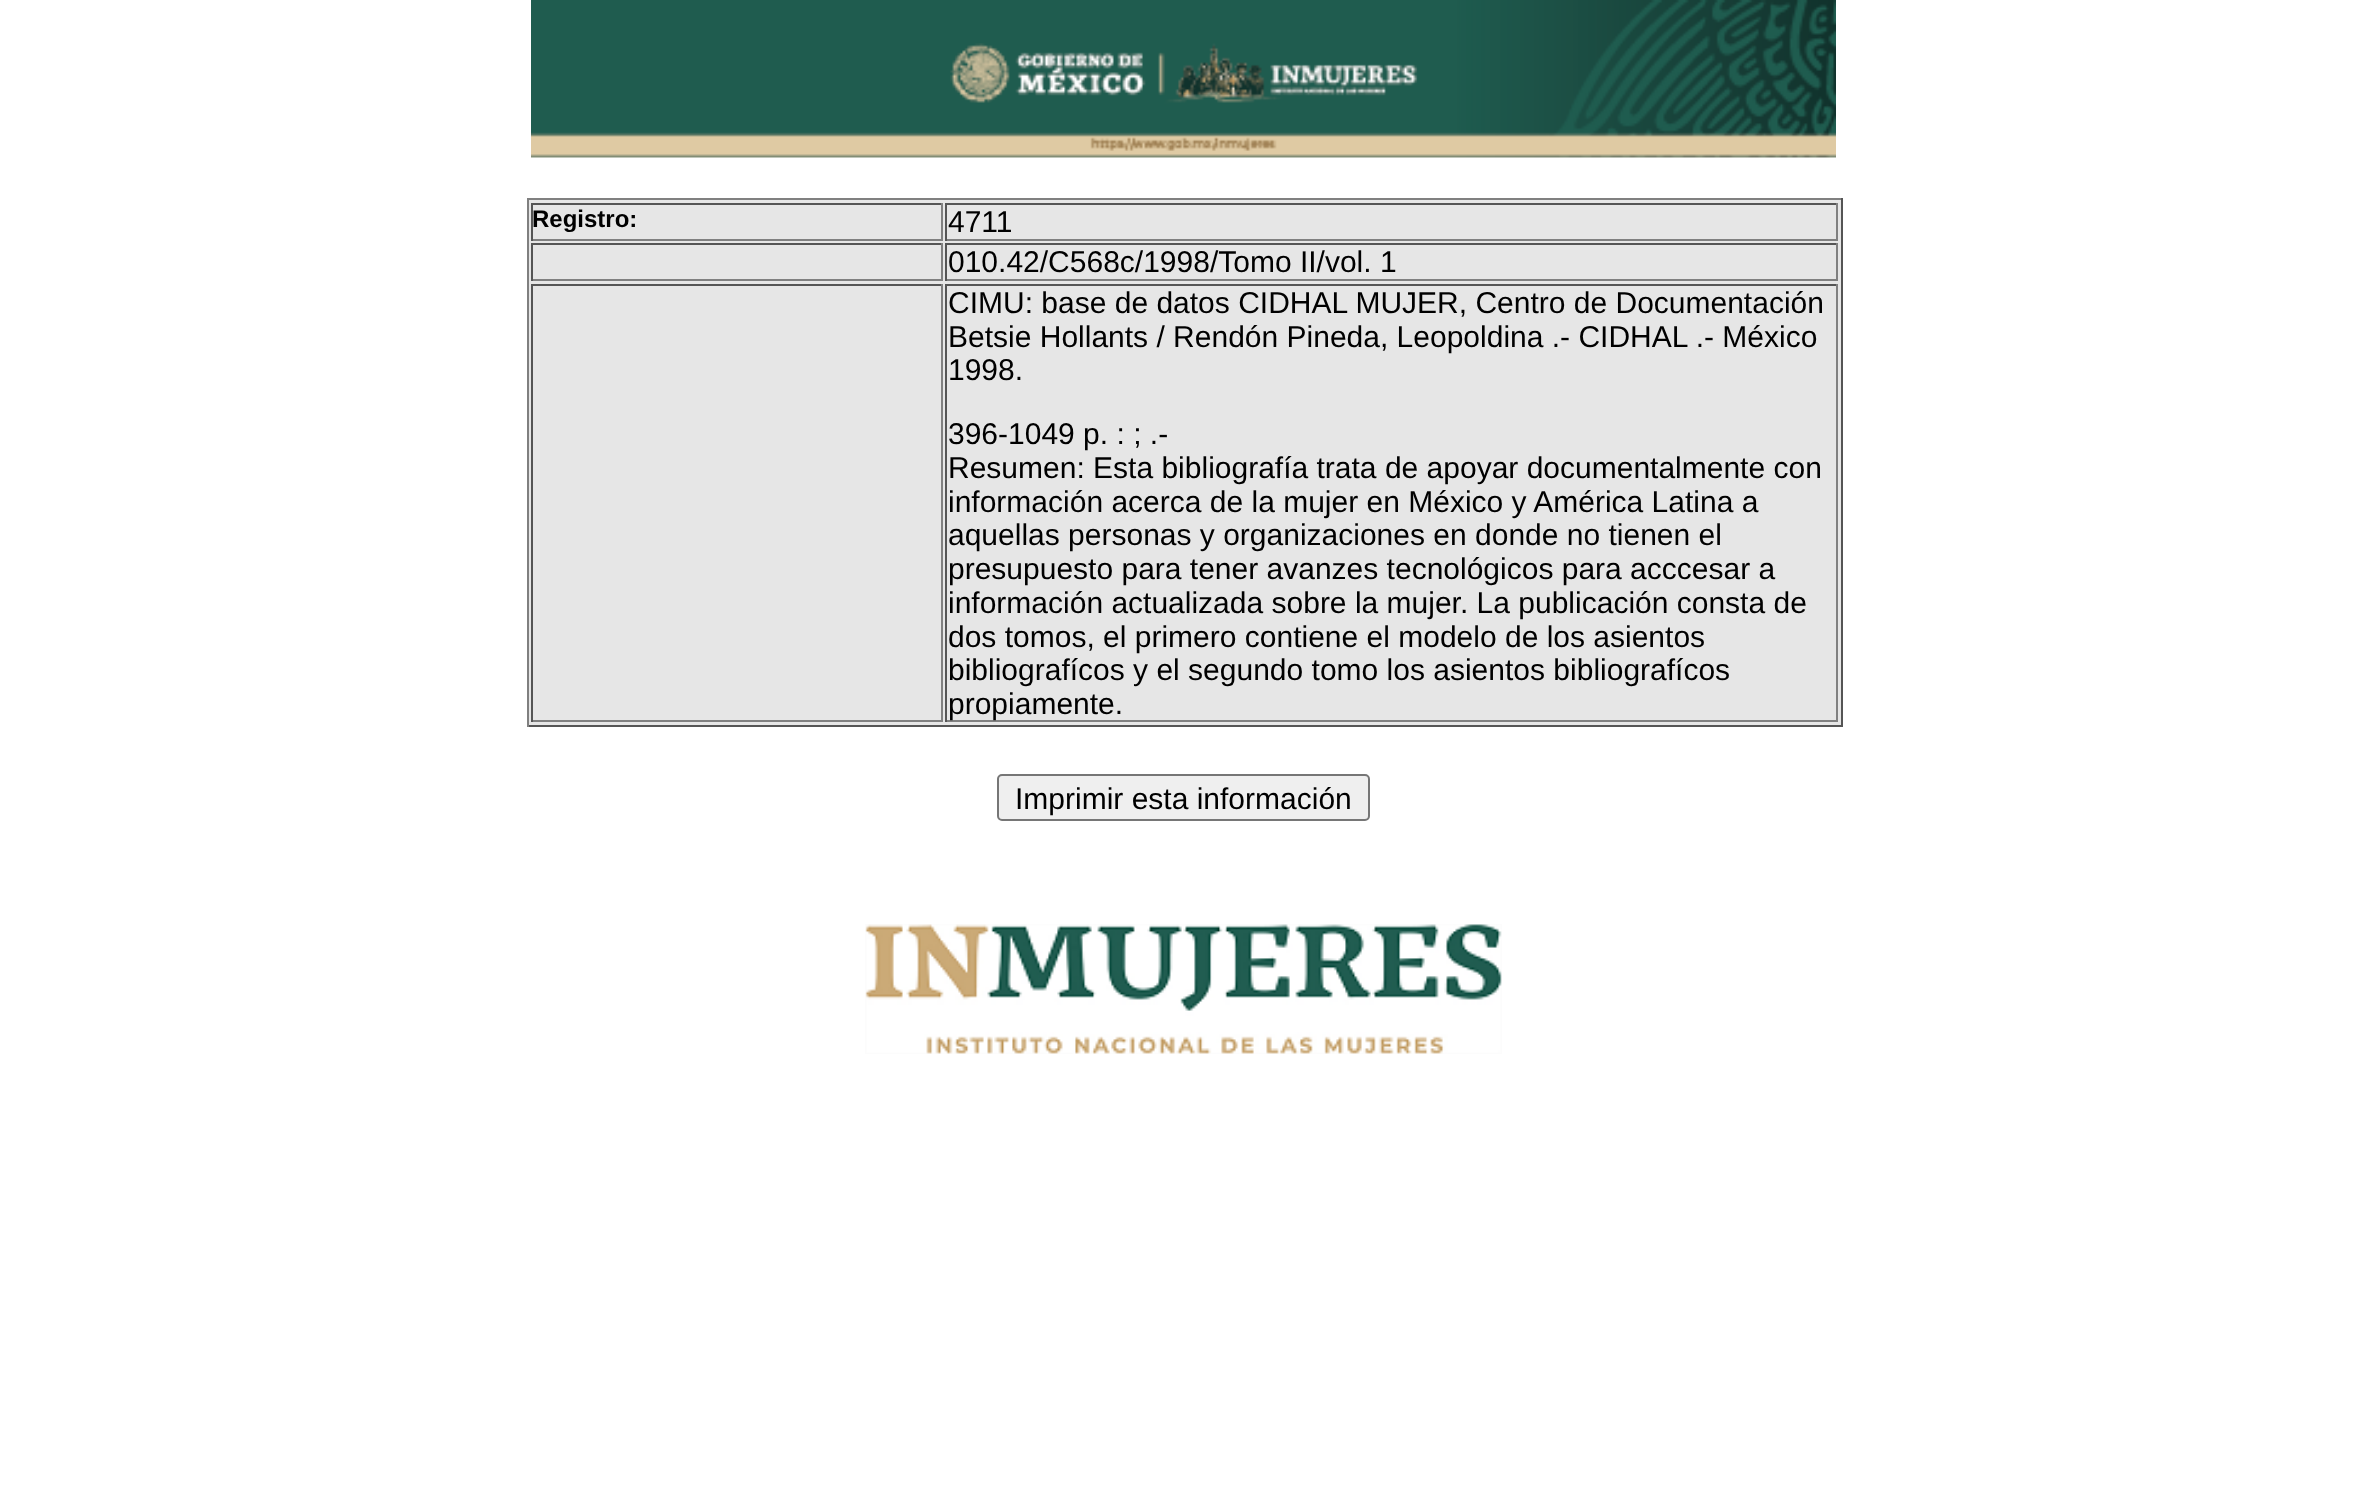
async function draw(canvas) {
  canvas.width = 2366
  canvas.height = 1485
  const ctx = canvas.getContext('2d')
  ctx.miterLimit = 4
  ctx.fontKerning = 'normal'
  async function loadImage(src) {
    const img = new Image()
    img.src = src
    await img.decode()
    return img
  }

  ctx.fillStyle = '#fff'
  ctx.fillRect(0, 0, 2366, 1485)
  ctx.drawImage(await loadImage('image0.png'), 531, 0, 1305, 158)
  ctx.fillStyle = '#e6e6e6'
  ctx.fillRect(529, 200, 1312, 525)
  ctx.fillStyle = '#808080'
  ctx.fillRect(527, 198, 1316, 2)
  ctx.fillStyle = '#555'
  ctx.fillRect(1841, 198, 2, 529)
  ctx.fillRect(527, 725, 1316, 2)
  ctx.fillStyle = '#808080'
  ctx.fillRect(527, 198, 2, 529)
  ctx.fillStyle = '#555'
  ctx.fillRect(531, 203, 412, 2)
  ctx.fillStyle = '#808080'
  ctx.fillRect(941, 203, 2, 38)
  ctx.fillRect(531, 239, 412, 2)
  ctx.fillStyle = '#555'
  ctx.fillRect(531, 203, 2, 38)
  ctx.font = 'bold 24px Liberation Sans'
  ctx.fillStyle = '#000'
  ctx.fillText('Registro:', 532, 227)
  ctx.fillStyle = '#555'
  ctx.fillRect(945, 203, 893, 2)
  ctx.fillStyle = '#808080'
  ctx.fillRect(1836, 203, 2, 38)
  ctx.fillRect(945, 239, 893, 2)
  ctx.fillStyle = '#555'
  ctx.fillRect(945, 203, 2, 38)
  ctx.font = '30px Liberation Sans'
  ctx.fillStyle = '#000'
  ctx.fillText('4711', 948, 232)
  ctx.fillStyle = '#555'
  ctx.fillRect(531, 243, 412, 2)
  ctx.fillStyle = '#808080'
  ctx.fillRect(941, 243, 2, 38)
  ctx.fillRect(531, 279, 412, 2)
  ctx.fillStyle = '#555'
  ctx.fillRect(531, 243, 2, 38)
  ctx.fillRect(945, 243, 893, 2)
  ctx.fillStyle = '#808080'
  ctx.fillRect(1836, 243, 2, 38)
  ctx.fillRect(945, 279, 893, 2)
  ctx.fillStyle = '#555'
  ctx.fillRect(945, 243, 2, 38)
  ctx.fillStyle = '#000'
  ctx.fillText('010.42/C568c/1998/Tomo II/vol. 1', 948, 272)
  ctx.fillStyle = '#555'
  ctx.fillRect(531, 284, 412, 2)
  ctx.fillStyle = '#808080'
  ctx.fillRect(941, 284, 2, 438)
  ctx.fillRect(531, 720, 412, 2)
  ctx.fillStyle = '#555'
  ctx.fillRect(531, 284, 2, 438)
  ctx.fillRect(945, 284, 893, 2)
  ctx.fillStyle = '#808080'
  ctx.fillRect(1836, 284, 2, 438)
  ctx.fillRect(945, 720, 893, 2)
  ctx.fillStyle = '#555'
  ctx.fillRect(945, 284, 2, 438)
  ctx.fillStyle = '#000'
  ctx.fillText('CIMU: base de datos CIDHAL MUJER, Centro de Documentación', 948, 313)
  ctx.fillText('Betsie Hollants / Rendón Pineda, Leopoldina .- CIDHAL .- México', 948, 347)
  ctx.fillText('1998.', 948, 380)
  ctx.fillText('396-1049 p. : ; .-', 948, 444)
  ctx.fillText('Resumen: Esta bibliografía trata de apoyar documentalmente con', 948, 478)
  ctx.fillText('información acerca de la mujer en México y América Latina a', 948, 512)
  ctx.fillText('aquellas personas y organizaciones en donde no tienen el', 948, 545)
  ctx.fillText('presupuesto para tener avanzes tecnológicos para acccesar a', 948, 579)
  ctx.fillText('información actualizada sobre la mujer. La publicación consta de', 948, 613)
  ctx.fillText('dos tomos, el primero contiene el modelo de los asientos', 948, 647)
  ctx.fillText('bibliografícos y el segundo tomo los asientos bibliografícos', 948, 680)
  ctx.fillText('propiamente.', 948, 714)
  ctx.fillStyle = '#efefef'
  ctx.beginPath()
  ctx.roundRect(998, 775, 371, 45, 4)
  ctx.fill()
  ctx.strokeStyle = '#767676'
  ctx.lineWidth = 2
  ctx.stroke()
  ctx.fillStyle = '#000'
  ctx.fillText('Imprimir esta información', 1015, 809)
  ctx.drawImage(await loadImage('image1.png'), 865, 924, 637, 130)
}

draw(document.querySelector('canvas'))
